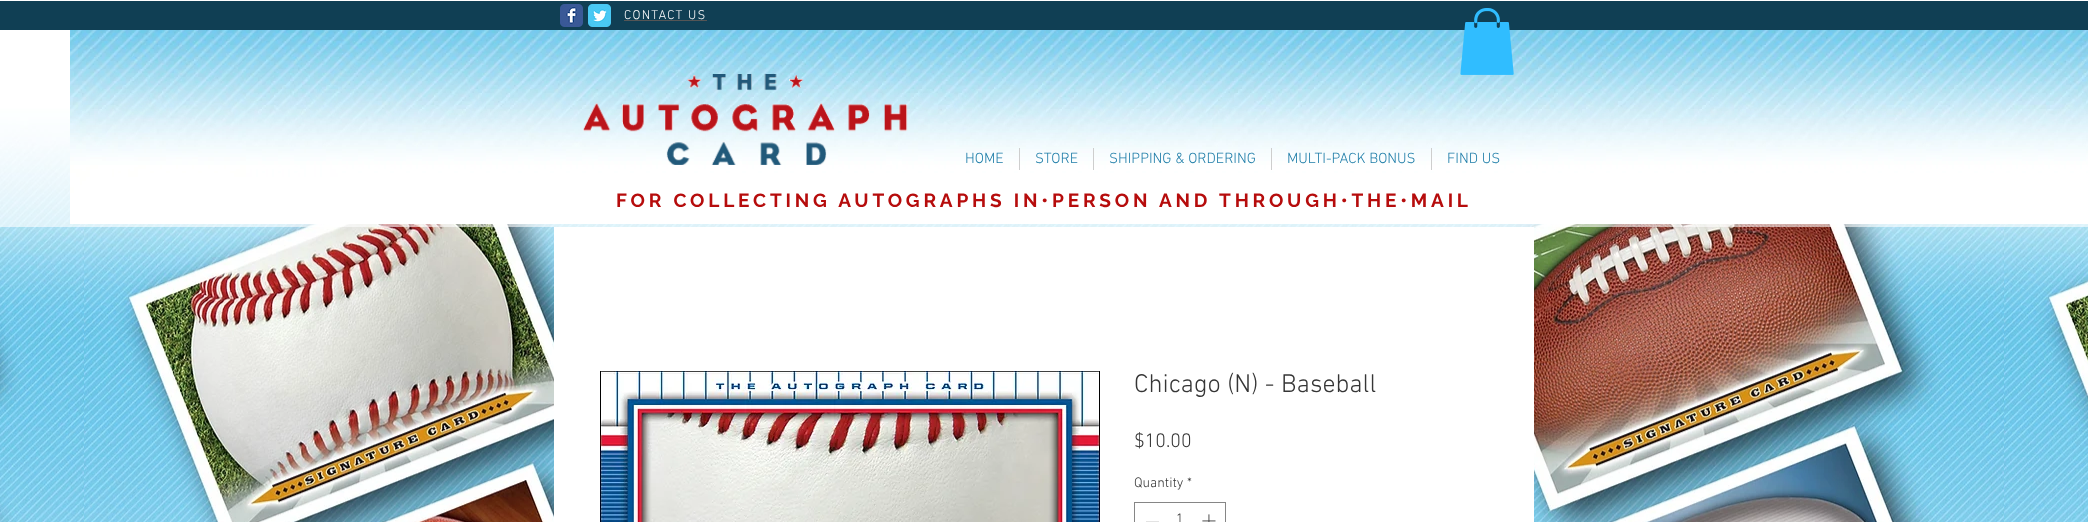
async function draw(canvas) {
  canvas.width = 2088
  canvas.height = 522
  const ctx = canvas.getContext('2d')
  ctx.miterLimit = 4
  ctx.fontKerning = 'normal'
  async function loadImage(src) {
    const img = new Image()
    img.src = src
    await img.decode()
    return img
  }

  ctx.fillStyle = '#fff'
  ctx.fillRect(0, 0, 2088, 522)
  ctx.fillStyle = '#103f54'
  ctx.fillRect(0, 1, 2088, 29)
  ctx.drawImage(await loadImage('image0.png'), 560, 4, 23, 23)
  ctx.drawImage(await loadImage('image1.png'), 588, 4, 23, 23)
  ctx.letterSpacing = '1.25px'
  ctx.font = '300 13px "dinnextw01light"'
  ctx.fillStyle = '#fff'
  ctx.fillText('CONTACT US', 624, 19)
  ctx.fillStyle = '#555'
  ctx.fillRect(624, 20, 83, 1)
  ctx.drawImage(await loadImage('image7.png'), 0, 108, 2088, 414)
  ctx.fillStyle = '#ffffff99'
  ctx.fillRect(0, 108, 2088, 119)
  ctx.drawImage(await loadImage('image3.png'), 70, 30, 2018, 194)
  ctx.drawImage(await loadImage('image2.png'), 1460, 8, 54, 67)
  ctx.drawImage(await loadImage('image4.png'), 583, 74, 325, 91)
  ctx.letterSpacing = '0px'
  ctx.font = '300 15px "dinnextw01light"'
  ctx.fillStyle = '#207ea9'
  ctx.fillText('HOME', 965, 163)
  ctx.fillStyle = '#cecece'
  ctx.fillRect(1019, 148, 1, 22)
  ctx.fillStyle = '#207ea9'
  ctx.fillText('STORE', 1035, 163)
  ctx.fillStyle = '#cecece'
  ctx.fillRect(1093, 148, 1, 22)
  ctx.fillStyle = '#207ea9'
  ctx.fillText('SHIPPING & ORDERING', 1109, 163)
  ctx.fillStyle = '#cecece'
  ctx.fillRect(1271, 148, 1, 22)
  ctx.fillStyle = '#207ea9'
  ctx.fillText('MULTI-PACK BONUS', 1287, 163)
  ctx.fillStyle = '#cecece'
  ctx.fillRect(1431, 148, 1, 22)
  ctx.fillStyle = '#207ea9'
  ctx.fillText('FIND US', 1447, 163)
  ctx.letterSpacing = '3.8px'
  ctx.font = 'bold 19px Raleway'
  ctx.fillStyle = '#b60c0c'
  ctx.fillText('FOR COLLECTING AUTOGRAPHS IN•PERSON AND THROUGH•THE•MAIL', 616, 207)
  ctx.fillStyle = '#fff'
  ctx.fillRect(554, 227, 980, 295)
  ctx.drawImage(await loadImage('image5.png'), 600, 371, 500, 151)
  ctx.letterSpacing = '0px'
  ctx.font = '300 26px "dinnextw01light"'
  ctx.fillStyle = '#363636'
  ctx.fillText('Chicago (N) - Baseball', 1134, 392)
  ctx.font = '300 20px "dinnextw01light"'
  ctx.fillText('$10.00', 1134, 447)
  ctx.font = '300 14px "dinnextw01light"'
  ctx.fillText('Quantity', 1134, 487)
  ctx.fillText('*', 1187, 487)
  ctx.strokeStyle = '#868686'
  ctx.strokeRect(1134.5, 502.5, 91, 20)
  ctx.fillStyle = '#e3e3e3'
  ctx.fillRect(1146, 521, 13, 1)
  ctx.fillStyle = '#363636'
  ctx.fillText('1', 1176, 523)
  ctx.drawImage(await loadImage('image6.png'), 1202, 514, 14, 8)
}

draw(document.querySelector('canvas'))
